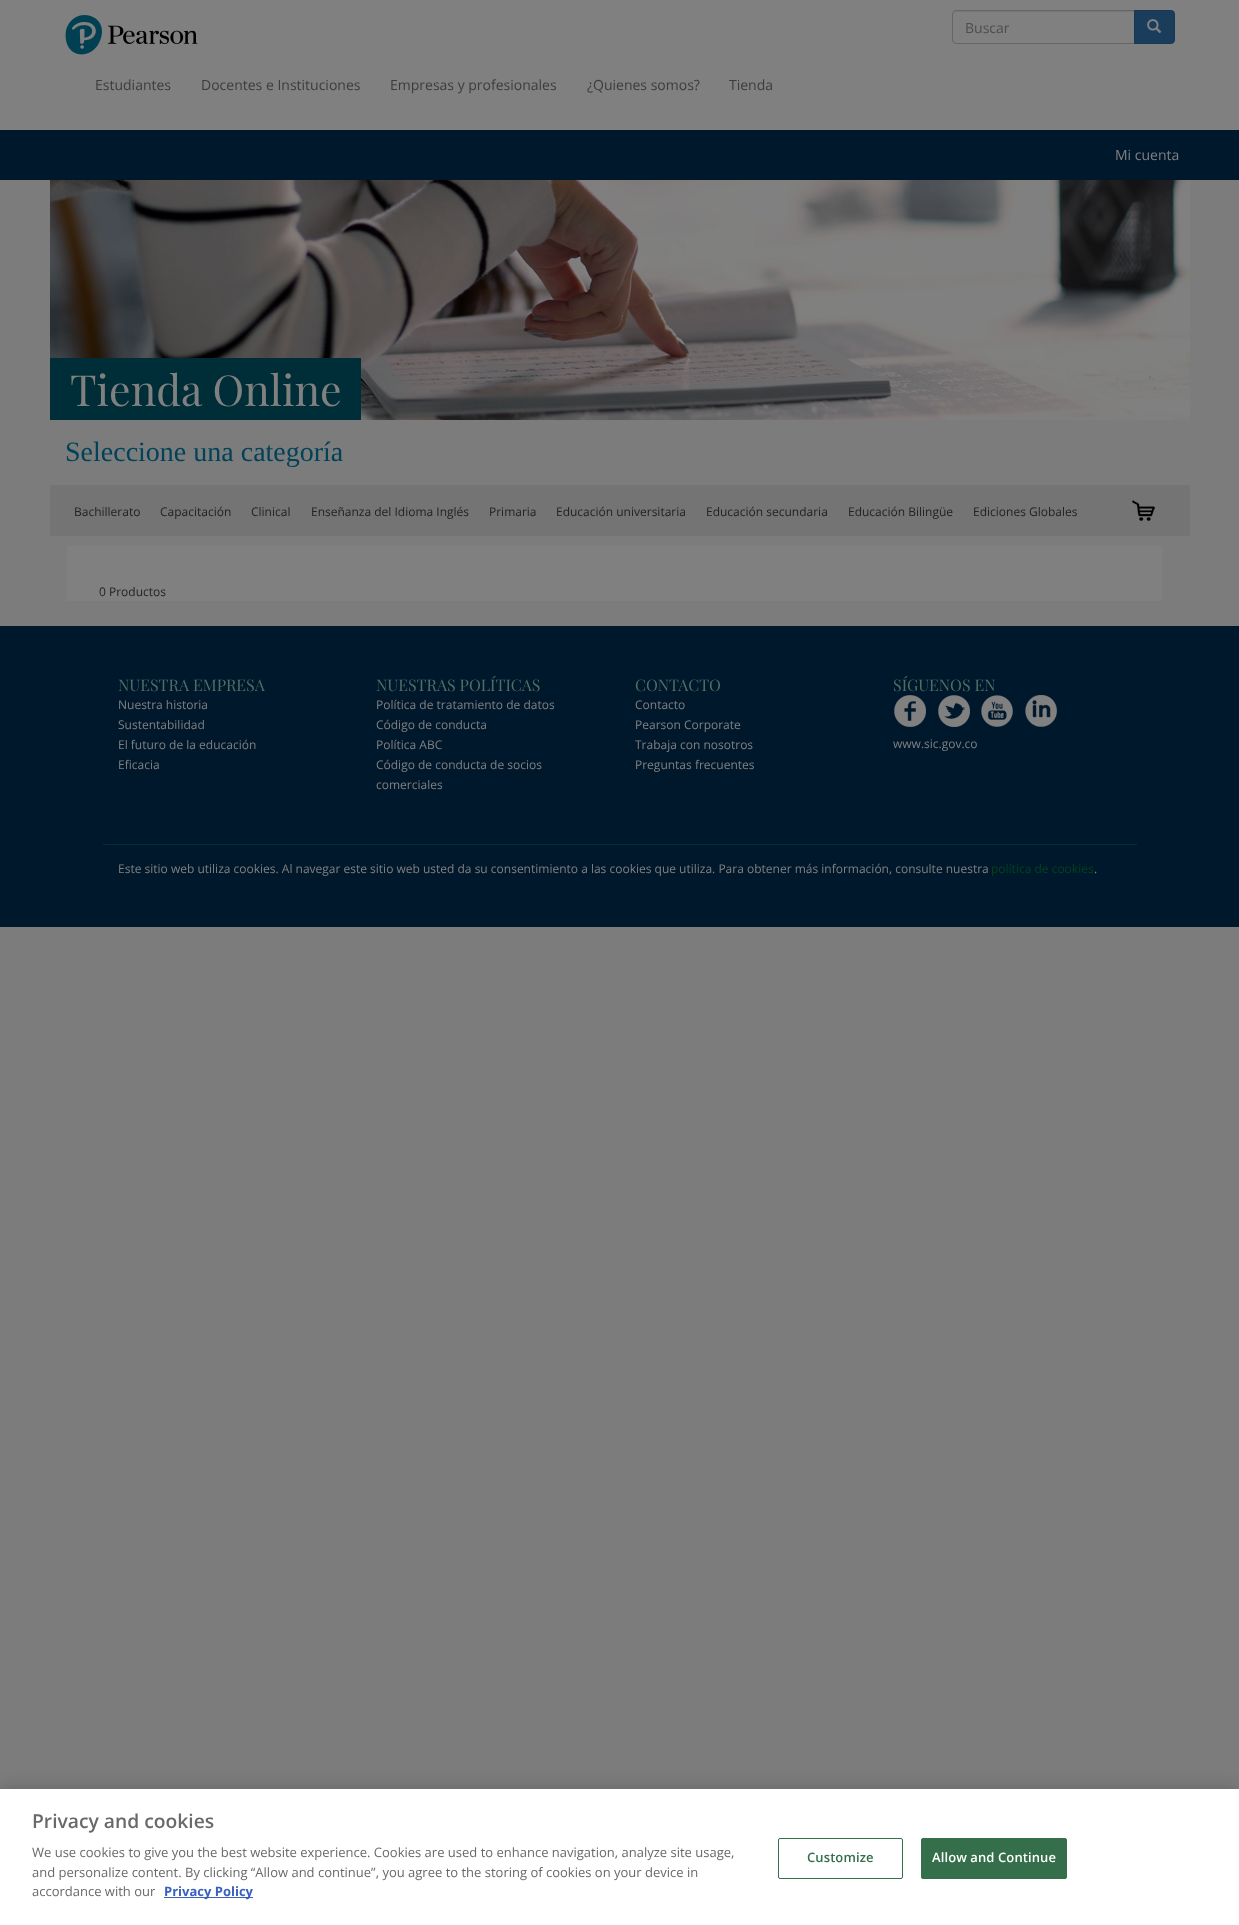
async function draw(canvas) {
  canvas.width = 1239
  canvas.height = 1925
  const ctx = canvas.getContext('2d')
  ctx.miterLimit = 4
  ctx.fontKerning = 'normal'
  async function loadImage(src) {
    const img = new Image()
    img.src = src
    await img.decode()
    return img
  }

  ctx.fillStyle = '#7c7c7c'
  ctx.fillRect(0, 0, 1239, 1925)
  ctx.fillStyle = '#808080'
  ctx.fillRect(0, 0, 1239, 130)
  ctx.fillStyle = '#767676'
  ctx.beginPath()
  ctx.moveTo(956, 12)
  ctx.lineTo(1134, 12)
  ctx.lineTo(1134, 11)
  ctx.lineTo(955, 11)
  ctx.bezierCurveTo(953, 12, 953, 13, 953, 15)
  ctx.bezierCurveTo(953, 13, 954, 12, 956, 12)
  ctx.closePath()
  ctx.fill()
  ctx.beginPath()
  ctx.roundRect(952.5, 10.5, 182, 33, [3.5, 0, 0, 3.5])
  ctx.strokeStyle = '#666'
  ctx.stroke()
  ctx.font = '14px Open Sans'
  ctx.fillStyle = '#4d4d4d'
  ctx.fillText('Buscar', 965, 33)
  ctx.fillStyle = '#1a3d5c'
  ctx.beginPath()
  ctx.roundRect(1134.5, 10.5, 40, 33, [0, 3.5, 3.5, 0])
  ctx.fill()
  ctx.strokeStyle = '#173752'
  ctx.stroke()
  ctx.drawImage(await loadImage('image0.png'), 1147, 19, 15, 14)
  ctx.drawImage(await loadImage('image1.png'), 65, 15, 133, 40)
  ctx.fillStyle = '#3c3c3c'
  ctx.fillText('Estudiantes', 95, 90)
  ctx.fillText('Docentes e Instituciones', 201, 90)
  ctx.fillText('Empresas y profesionales', 390, 90)
  ctx.fillText('¿Quienes somos?', 587, 90)
  ctx.fillText('Tienda', 729, 90)
  ctx.fillStyle = '#00182c'
  ctx.fillRect(0, 130, 1239, 50)
  ctx.fillStyle = '#808080'
  ctx.fillText('Mi cuenta', 1115, 160)
  ctx.drawImage(await loadImage('image2.png'), 50, 180, 1140, 240)
  ctx.fillStyle = '#002e38'
  ctx.fillRect(50, 358, 311, 62)
  ctx.font = '42.75px Playfair Display'
  ctx.fillStyle = '#808080'
  ctx.fillText('Tienda Online', 70, 406)
  ctx.font = '28px Liberation Serif'
  ctx.fillStyle = '#004359'
  ctx.fillText('Seleccione una categoría', 65, 461)
  ctx.fillStyle = '#747474'
  ctx.fillRect(50, 485, 1140, 51)
  ctx.font = '12px Open Sans'
  ctx.fillStyle = '#222'
  ctx.fillText('Bachillerato', 74, 516)
  ctx.fillText('Capacitación', 160, 516)
  ctx.fillText('Clinical', 251, 516)
  ctx.fillText('Enseñanza del Idioma Inglés', 311, 516)
  ctx.fillText('Primaria', 489, 516)
  ctx.fillText('Educación universitaria', 556, 516)
  ctx.fillText('Educación secundaria', 706, 516)
  ctx.fillText('Educación Bilingüe', 848, 516)
  ctx.fillText('Ediciones Globales', 973, 516)
  ctx.drawImage(await loadImage('image3.png'), 1132, 500, 23, 21)
  ctx.fillStyle = '#808080'
  ctx.fillRect(67, 546, 1095, 55)
  ctx.fillStyle = '#222'
  ctx.fillText('0 Productos', 99, 596)
  ctx.fillStyle = '#00182c'
  ctx.fillRect(0, 626, 1239, 301)
  ctx.font = '16px Playfair Display'
  ctx.fillStyle = '#4f6f65'
  ctx.fillText('NUESTRA EMPRESA', 118, 691)
  ctx.font = '12px Open Sans'
  ctx.fillStyle = '#808080'
  ctx.fillText('Nuestra historia', 118, 709)
  ctx.fillText('Sustentabilidad', 118, 729)
  ctx.fillText('El futuro de la educación', 118, 749)
  ctx.fillText('Eficacia', 118, 769)
  ctx.font = '16px Playfair Display'
  ctx.fillStyle = '#4f6f65'
  ctx.fillText('NUESTRAS POLÍTICAS', 376, 691)
  ctx.font = '12px Open Sans'
  ctx.fillStyle = '#808080'
  ctx.fillText('Política de tratamiento de datos', 376, 709)
  ctx.fillText('Código de conducta', 376, 729)
  ctx.fillText('Política ABC', 376, 749)
  ctx.fillText('Código de conducta de socios', 376, 769)
  ctx.fillText('comerciales', 376, 789)
  ctx.font = '16px Playfair Display'
  ctx.fillStyle = '#4f6f65'
  ctx.fillText('CONTACTO', 635, 691)
  ctx.font = '12px Open Sans'
  ctx.fillStyle = '#808080'
  ctx.fillText('Contacto', 635, 709)
  ctx.fillText('Pearson Corporate', 635, 729)
  ctx.fillText('Trabaja con nosotros', 635, 749)
  ctx.fillText('Preguntas frecuentes', 635, 769)
  ctx.font = '16px Playfair Display'
  ctx.fillStyle = '#4f6f65'
  ctx.fillText('SÍGUENOS EN', 893, 691)
  ctx.drawImage(await loadImage('image4.png'), 894, 695, 32, 32)
  ctx.drawImage(await loadImage('image5.png'), 938, 695, 32, 32)
  ctx.drawImage(await loadImage('image6.png'), 981, 695, 32, 32)
  ctx.drawImage(await loadImage('image7.png'), 1025, 695, 32, 32)
  ctx.font = '12px Open Sans'
  ctx.fillStyle = '#808080'
  ctx.fillText('www.sic.gov.co', 893, 748)
  ctx.fillStyle = '#002d38'
  ctx.fillRect(103, 844, 1034, 1)
  ctx.fillStyle = '#808080'
  ctx.fillText('Este sitio web utiliza cookies. Al navegar este sitio web usted da su consentimiento a las cookies que utiliza. Para obtener más información, consulte nuestra', 118, 873)
  ctx.fillStyle = '#00431c'
  ctx.fillText('política de cookies', 991, 873)
  ctx.fillStyle = '#808080'
  ctx.fillText('.', 1094, 873)
  ctx.fillStyle = '#00000033'
  ctx.filter = 'blur(9px)'
  ctx.beginPath()
  ctx.rect(0, 1789, 1239, 136)
  ctx.fill()
  ctx.filter = 'none'
  ctx.fillStyle = '#fff'
  ctx.fillRect(0, 1789, 1239, 136)
  ctx.font = '600 19.25px Open Sans'
  ctx.fillStyle = '#696969'
  ctx.fillText('Privacy and cookies', 32, 1828)
  ctx.font = '13px Open Sans'
  ctx.fillText('We use cookies to give you the best website experience. Cookies are used to enhance navigation, analyze site usage,', 32, 1857)
  ctx.fillText('and personalize content. By clicking “Allow and continue”, you agree to the storing of cookies on your device in', 32, 1877)
  ctx.fillText('accordance with our', 32, 1896)
  ctx.fillStyle = '#3860be'
  ctx.fillRect(164, 1897, 89, 1)
  ctx.font = 'bold 13px Open Sans'
  ctx.fillText('Privacy Policy', 164, 1896)
  ctx.beginPath()
  ctx.roundRect(778.5, 1838.5, 124, 40, 1.5)
  ctx.strokeStyle = '#346e4a'
  ctx.stroke()
  ctx.letterSpacing = '0.1px'
  ctx.font = '600 13px Open Sans'
  ctx.fillStyle = '#346e4a'
  ctx.fillText('Customize', 807, 1862)
  ctx.beginPath()
  ctx.roundRect(921.5, 1838.5, 145, 40, 1.5)
  ctx.fill()
  ctx.stroke()
  ctx.fillStyle = '#fff'
  ctx.fillText('Allow and Continue', 932, 1862)
}

draw(document.querySelector('canvas'))
